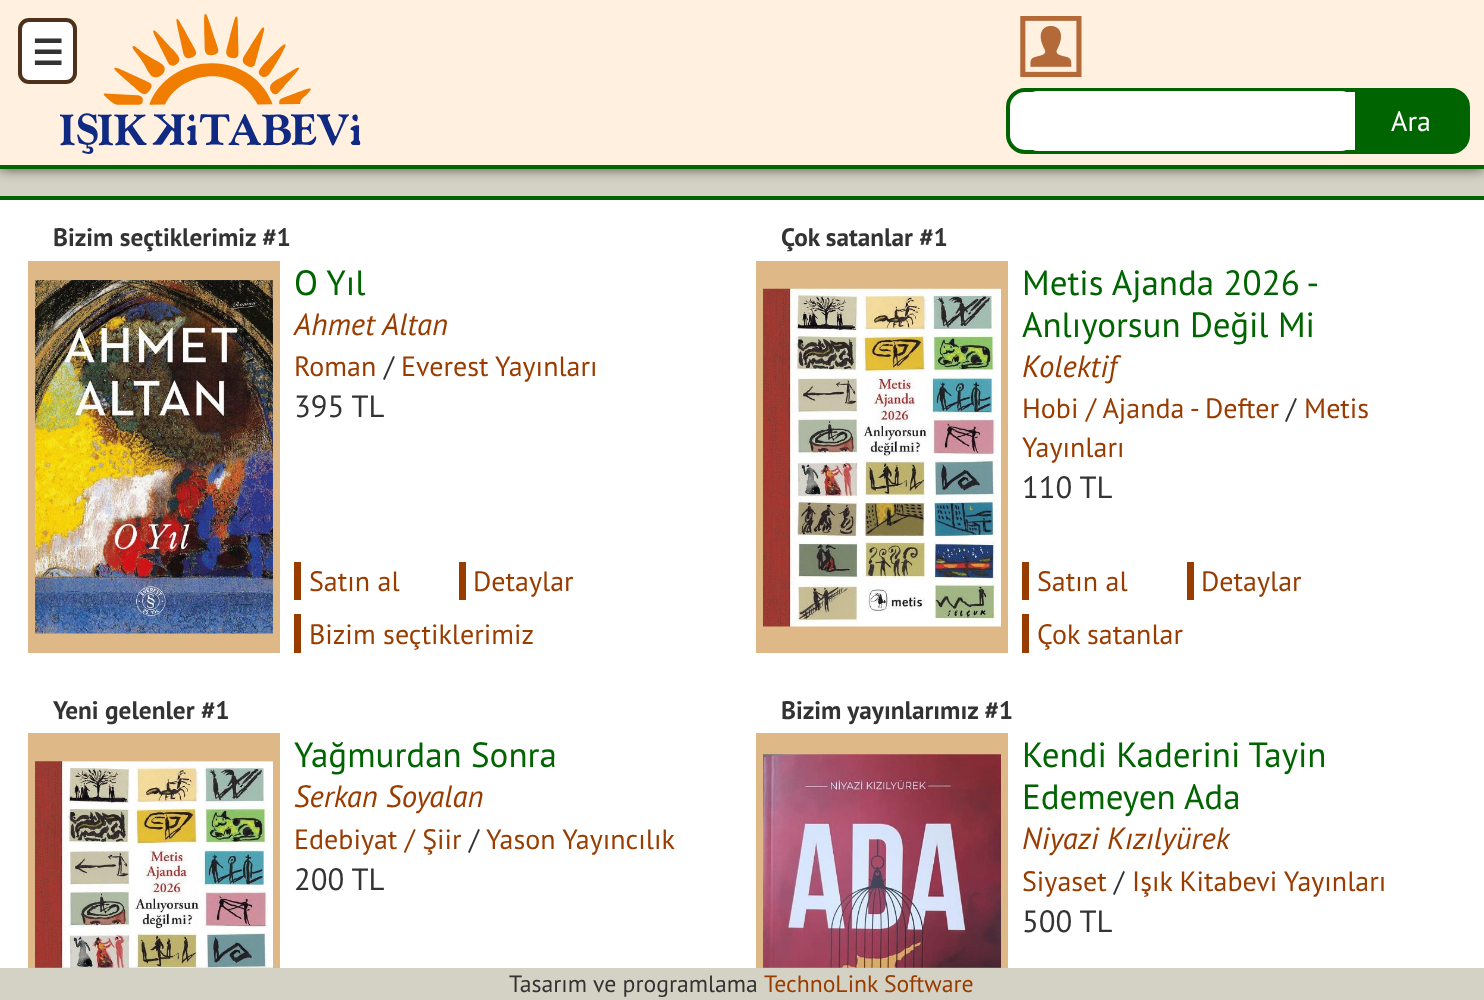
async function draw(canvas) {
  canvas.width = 1484
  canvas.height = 1000
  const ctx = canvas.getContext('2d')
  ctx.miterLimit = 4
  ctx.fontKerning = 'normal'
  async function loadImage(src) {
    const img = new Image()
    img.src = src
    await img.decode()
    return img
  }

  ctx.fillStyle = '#d4d2c4'
  ctx.fillRect(0, 0, 1484, 1000)
  ctx.fillStyle = '#000000bf'
  ctx.filter = 'blur(7px)'
  ctx.beginPath()
  ctx.rect(0, 0, 1484, 168)
  ctx.fill()
  ctx.filter = 'none'
  ctx.fillStyle = '#fff0df'
  ctx.fillRect(0, 0, 1484, 165)
  ctx.fillStyle = '#006400'
  ctx.fillRect(0, 165, 1484, 4)
  ctx.drawImage(await loadImage('image0.png'), 60, 14, 301, 140)
  ctx.fillStyle = '#fff'
  ctx.beginPath()
  ctx.roundRect(20, 20, 55, 62, 9)
  ctx.fill()
  ctx.strokeStyle = '#4d311a'
  ctx.lineWidth = 4
  ctx.stroke()
  ctx.font = 'bold 35px DejaVu Sans'
  ctx.fillStyle = '#333'
  ctx.fillText('☰', 32, 65)
  ctx.drawImage(await loadImage('image1.png'), 1020, 16, 62, 61)
  ctx.fillStyle = '#fff'
  ctx.beginPath()
  ctx.roundRect(1008, 90, 460, 62, 17)
  ctx.fill()
  ctx.strokeStyle = '#006400'
  ctx.stroke()
  ctx.beginPath()
  ctx.roundRect(1024, 91, 331, 60, 14)
  ctx.fill()
  ctx.fillStyle = '#006400'
  ctx.beginPath()
  ctx.roundRect(1355, 91, 112, 60, [0, 14, 14, 0])
  ctx.fill()
  ctx.font = '28px PT Sans'
  ctx.fillStyle = '#fff'
  ctx.fillText('Ara', 1391, 131)
  ctx.fillRect(0, 200, 1484, 768)
  ctx.fillStyle = '#006400'
  ctx.fillRect(0, 196, 1484, 4)
  ctx.font = 'bold 25.25px PT Sans'
  ctx.fillStyle = '#333'
  ctx.fillText('Bizim seçtiklerimiz #1', 53, 246)
  ctx.fillStyle = '#deb887'
  ctx.fillRect(28, 261, 252, 392)
  ctx.drawImage(await loadImage('image2.png'), 35, 280, 238, 354)
  ctx.font = '35px PT Sans'
  ctx.fillStyle = '#006400'
  ctx.fillText('O Yıl', 294, 295)
  ctx.font = 'italic 30.75px PT Sans'
  ctx.fillStyle = '#993c00'
  ctx.fillText('Ahmet Altan', 294, 335)
  ctx.font = '28px PT Sans'
  ctx.fillText('Roman', 294, 376)
  ctx.fillStyle = '#333'
  ctx.fillText('/', 384, 376)
  ctx.fillStyle = '#993c00'
  ctx.fillText('Everest Yayınları', 401, 376)
  ctx.font = '30.75px PT Sans'
  ctx.fillStyle = '#333'
  ctx.fillText('395 TL', 294, 417)
  ctx.fillStyle = '#993c00'
  ctx.fillRect(294, 562, 7, 38)
  ctx.font = '28px PT Sans'
  ctx.fillText('Satın al', 309, 591)
  ctx.fillRect(459, 562, 7, 38)
  ctx.fillText('Detaylar', 473, 591)
  ctx.fillRect(294, 614, 7, 39)
  ctx.fillText('Bizim seçtiklerimiz', 309, 644)
  ctx.font = 'bold 25.25px PT Sans'
  ctx.fillStyle = '#333'
  ctx.fillText('Çok satanlar #1', 781, 246)
  ctx.fillStyle = '#deb887'
  ctx.fillRect(756, 261, 252, 392)
  ctx.drawImage(await loadImage('image3.png'), 763, 288, 238, 339)
  ctx.font = '35px PT Sans'
  ctx.fillStyle = '#006400'
  ctx.fillText('Metis Ajanda 2026 -', 1022, 295)
  ctx.fillText('Anlıyorsun Değil Mi', 1022, 337)
  ctx.font = 'italic 30.75px PT Sans'
  ctx.fillStyle = '#993c00'
  ctx.fillText('Kolektif', 1022, 377)
  ctx.font = '28px PT Sans'
  ctx.fillText('Hobi / Ajanda - Defter', 1022, 418)
  ctx.fillStyle = '#333'
  ctx.fillText('/', 1286, 418)
  ctx.fillStyle = '#993c00'
  ctx.fillText('Metis', 1304, 418)
  ctx.fillText('Yayınları', 1022, 457)
  ctx.font = '30.75px PT Sans'
  ctx.fillStyle = '#333'
  ctx.fillText('110 TL', 1022, 498)
  ctx.fillStyle = '#993c00'
  ctx.fillRect(1022, 562, 7, 38)
  ctx.font = '28px PT Sans'
  ctx.fillText('Satın al', 1037, 591)
  ctx.fillRect(1187, 562, 7, 38)
  ctx.fillText('Detaylar', 1201, 591)
  ctx.fillRect(1022, 614, 7, 39)
  ctx.fillText('Çok satanlar', 1037, 644)
  ctx.font = 'bold 25.25px PT Sans'
  ctx.fillStyle = '#333'
  ctx.fillText('Yeni gelenler #1', 53, 719)
  ctx.fillStyle = '#deb887'
  ctx.fillRect(28, 733, 252, 235)
  ctx.drawImage(await loadImage('image4.png'), 35, 761, 238, 207)
  ctx.font = '35px PT Sans'
  ctx.fillStyle = '#006400'
  ctx.fillText('Yağmurdan Sonra', 294, 767)
  ctx.font = 'italic 30.75px PT Sans'
  ctx.fillStyle = '#993c00'
  ctx.fillText('Serkan Soyalan', 294, 807)
  ctx.font = '28px PT Sans'
  ctx.fillText('Edebiyat / Şiir', 294, 849)
  ctx.fillStyle = '#333'
  ctx.fillText('/', 469, 849)
  ctx.fillStyle = '#993c00'
  ctx.fillText('Yason Yayıncılık', 486, 849)
  ctx.font = '30.75px PT Sans'
  ctx.fillStyle = '#333'
  ctx.fillText('200 TL', 294, 890)
  ctx.font = 'bold 25.25px PT Sans'
  ctx.fillText('Bizim yayınlarımız #1', 781, 719)
  ctx.fillStyle = '#deb887'
  ctx.fillRect(756, 733, 252, 235)
  ctx.drawImage(await loadImage('image5.png'), 763, 754, 238, 214)
  ctx.font = '35px PT Sans'
  ctx.fillStyle = '#006400'
  ctx.fillText('Kendi Kaderini Tayin', 1022, 767)
  ctx.fillText('Edemeyen Ada', 1022, 809)
  ctx.font = 'italic 30.75px PT Sans'
  ctx.fillStyle = '#993c00'
  ctx.fillText('Niyazi Kızılyürek', 1022, 849)
  ctx.font = '28px PT Sans'
  ctx.fillText('Siyaset', 1022, 891)
  ctx.fillStyle = '#333'
  ctx.fillText('/', 1114, 891)
  ctx.fillStyle = '#993c00'
  ctx.fillText('Işık Kitabevi Yayınları', 1132, 891)
  ctx.font = '30.75px PT Sans'
  ctx.fillStyle = '#333'
  ctx.fillText('500 TL', 1022, 932)
  ctx.font = '23.75px PT Sans'
  ctx.fillText('Tasarım ve programlama', 509, 992)
  ctx.fillStyle = '#993c00'
  ctx.fillText('TechnoLink Software', 764, 992)
}

draw(document.querySelector('canvas'))
